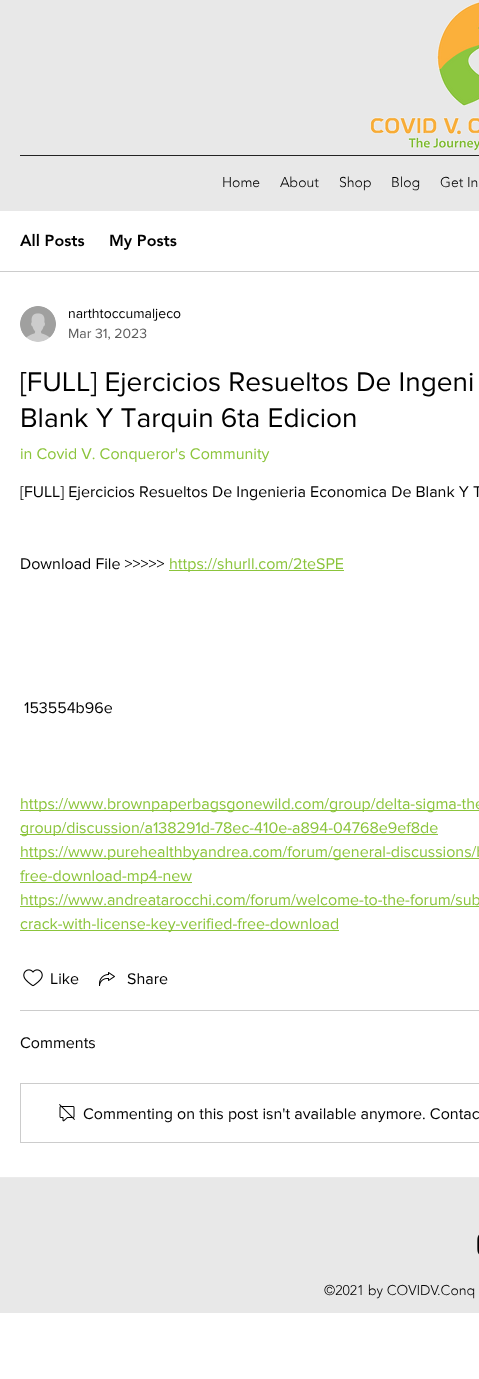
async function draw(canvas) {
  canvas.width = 479
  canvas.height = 1379
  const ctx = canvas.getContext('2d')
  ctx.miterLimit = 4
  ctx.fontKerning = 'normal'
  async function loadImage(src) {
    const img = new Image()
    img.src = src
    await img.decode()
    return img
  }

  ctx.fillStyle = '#fff'
  ctx.fillRect(0, 0, 479, 1379)
  ctx.fillStyle = '#e8e8e8'
  ctx.fillRect(0, 0, 479, 211)
  ctx.drawImage(await loadImage('image0.png'), 370, 2, 109, 149)
  ctx.fillStyle = '#232323'
  ctx.fillRect(20, 155, 459, 1)
  ctx.font = '300 14px "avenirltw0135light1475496"'
  ctx.fillStyle = '#000'
  ctx.fillText('Home', 222, 187)
  ctx.fillText('About', 280, 187)
  ctx.fillText('Shop', 339, 187)
  ctx.fillText('Blog', 391, 187)
  ctx.fillText('Get In', 440, 187)
  ctx.fillStyle = '#ccc'
  ctx.fillRect(0, 271, 479, 1)
  ctx.font = '900 16px "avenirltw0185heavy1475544"'
  ctx.fillStyle = '#000'
  ctx.fillText('All Posts', 20, 246)
  ctx.fillText('My Posts', 109, 246)
  ctx.drawImage(await loadImage('image1.png'), 20, 306, 36, 36)
  ctx.font = '14px "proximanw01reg"'
  ctx.fillText('narthtoccumaljeco', 68, 318)
  ctx.fillStyle = '#5c5c5c'
  ctx.fillText('Mar 31, 2023', 68, 338)
  ctx.font = '28px "proximanw01reg"'
  ctx.fillStyle = '#000'
  ctx.fillText('[FULL] Ejercicios Resueltos De Ingeni', 20, 391)
  ctx.fillText('Blank Y Tarquin 6ta Edicion', 20, 427)
  ctx.font = '16px "proximanw01reg"'
  ctx.fillStyle = '#8bc43b'
  ctx.fillText('in Covid V. Conqueror\'s Community', 20, 459)
  ctx.fillStyle = '#000'
  ctx.fillText('[FULL] Ejercicios Resueltos De Ingenieria Economica De Blank Y T', 20, 497)
  ctx.fillText('Download File >>>>>', 20, 569)
  ctx.fillStyle = '#8bc43b'
  ctx.fillRect(169, 570, 175, 1)
  ctx.fillText('https://shurll.com/2teSPE', 169, 569)
  ctx.fillStyle = '#000'
  ctx.fillText('153554b96e', 24, 713)
  ctx.fillStyle = '#8bc43b'
  ctx.fillRect(20, 810, 459, 1)
  ctx.fillText('https://www.brownpaperbagsgonewild.com/group/delta-sigma-the', 20, 809)
  ctx.fillRect(20, 834, 418, 1)
  ctx.fillText('group/discussion/a138291d-78ec-410e-a894-04768e9ef8de', 20, 833)
  ctx.fillRect(20, 858, 459, 1)
  ctx.fillText('https://www.purehealthbyandrea.com/forum/general-discussions/b', 20, 857)
  ctx.fillRect(20, 882, 172, 1)
  ctx.fillText('free-download-mp4-new', 20, 881)
  ctx.fillRect(20, 906, 459, 1)
  ctx.fillText('https://www.andreatarocchi.com/forum/welcome-to-the-forum/sub', 20, 905)
  ctx.fillRect(20, 930, 319, 1)
  ctx.fillText('crack-with-license-key-verified-free-download', 20, 929)
  ctx.drawImage(await loadImage('image2.png'), 23, 969, 20, 18)
  ctx.fillStyle = '#000'
  ctx.fillText('Like', 50, 984)
  ctx.drawImage(await loadImage('image3.png'), 99, 972, 16, 14)
  ctx.fillText('Share', 127, 984)
  ctx.fillStyle = '#ccc'
  ctx.fillRect(20, 1010, 459, 1)
  ctx.fillStyle = '#000'
  ctx.fillText('Comments', 20, 1048)
  ctx.strokeStyle = '#ccc'
  ctx.strokeRect(20.5, 1083.5, 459, 59)
  ctx.drawImage(await loadImage('image4.png'), 59, 1104, 16, 18)
  ctx.fillText('Commenting on this post isn\'t available anymore. Contac', 83, 1119)
  ctx.fillStyle = '#e8e8e8'
  ctx.fillRect(0, 1178, 479, 135)
  ctx.fillStyle = '#ebebeb'
  ctx.fillRect(0, 1177, 479, 1)
  ctx.drawImage(await loadImage('image5.png'), 477, 1234, 2, 21)
  ctx.font = '300 14px "avenirltw0135light1475496"'
  ctx.fillStyle = '#000'
  ctx.fillText('©2021 by COVIDV.Conq', 324, 1295)
}

draw(document.querySelector('canvas'))
